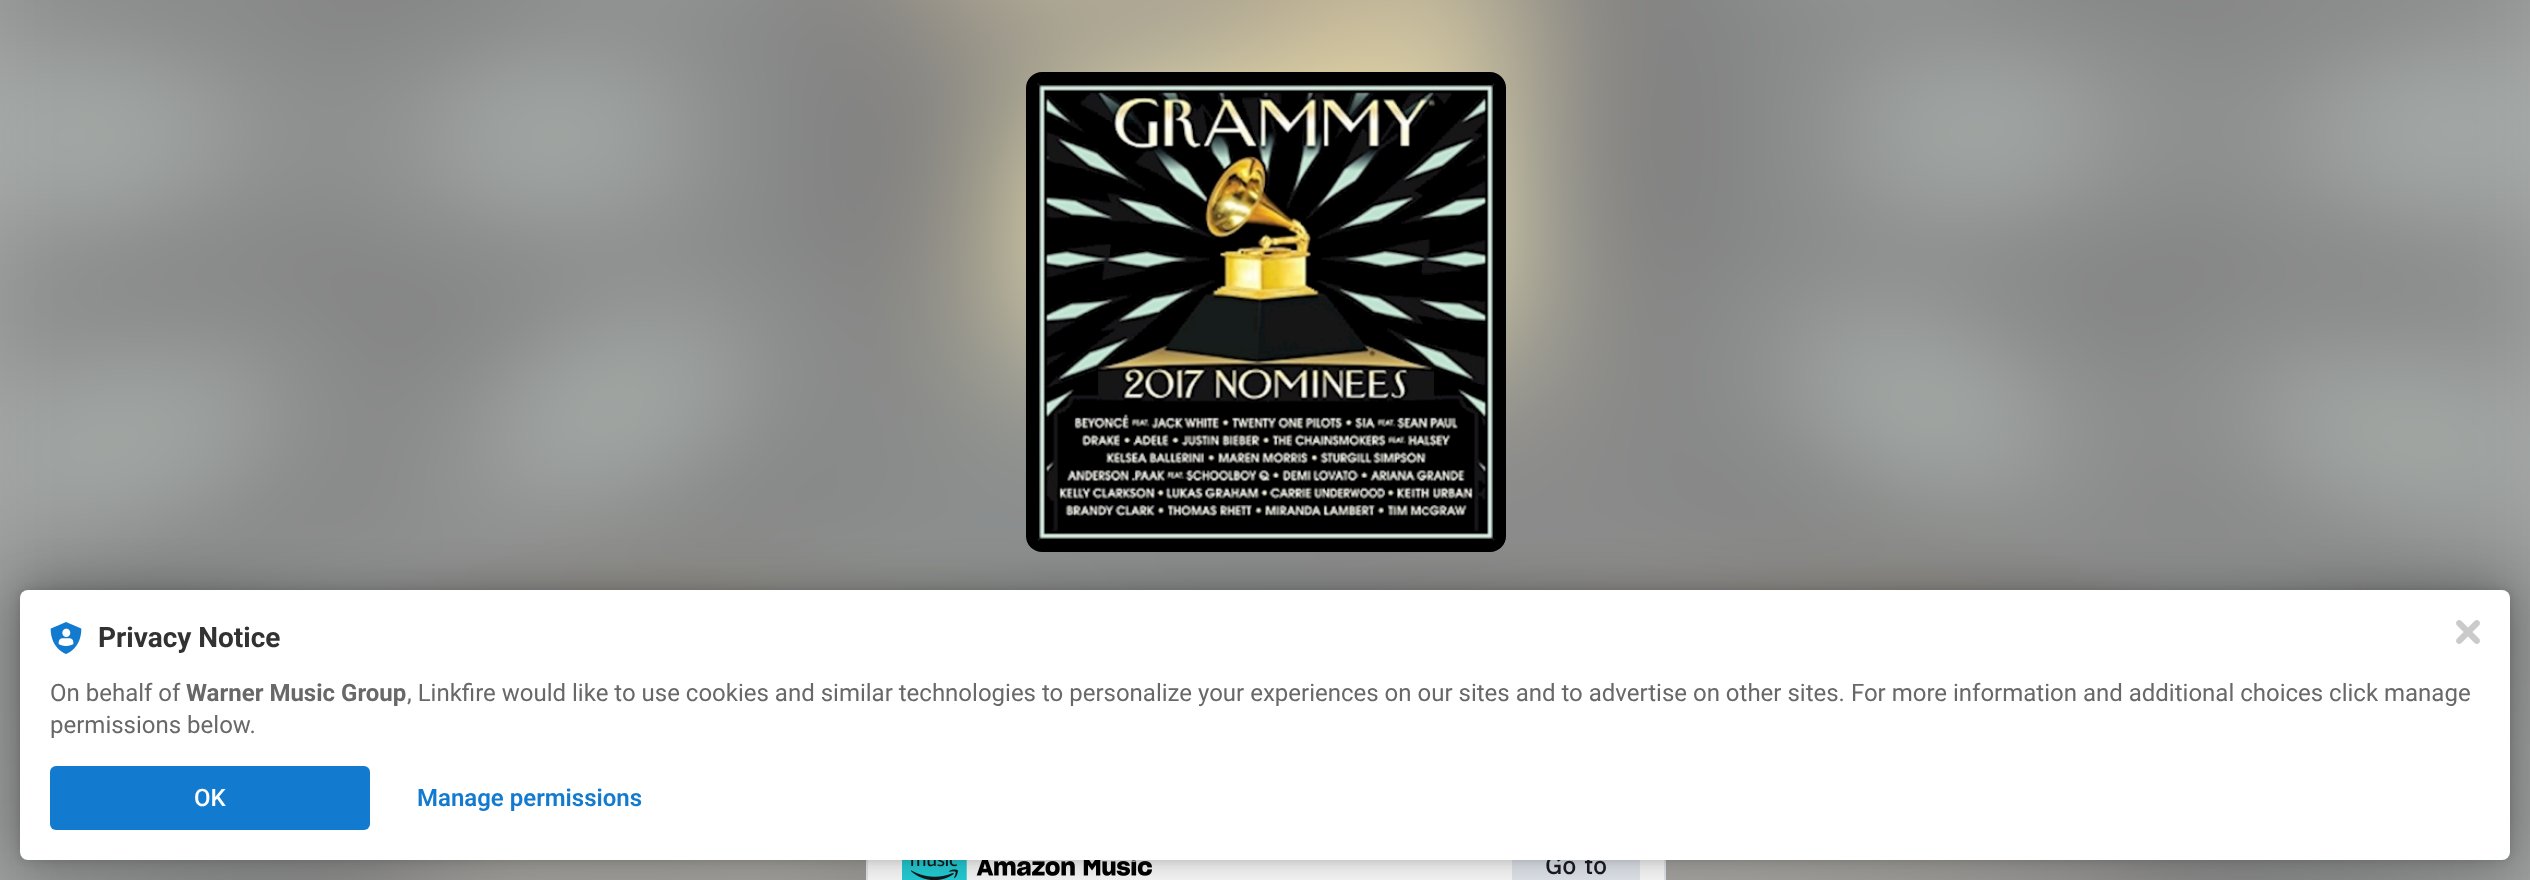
async function draw(canvas) {
  canvas.width = 2530
  canvas.height = 880
  const ctx = canvas.getContext('2d')
  ctx.miterLimit = 4
  ctx.fontKerning = 'normal'
  async function loadImage(src) {
    const img = new Image()
    img.src = src
    await img.decode()
    return img
  }

  ctx.fillStyle = '#fff'
  ctx.fillRect(0, 0, 2530, 880)
  ctx.drawImage(await loadImage('image0.png'), 0, 0, 2530, 880)
  ctx.strokeStyle = '#e6eaf2'
  ctx.lineWidth = 2
  ctx.strokeRect(867, 793, 798, 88)
  ctx.fillRect(868, 860, 796, 20)
  ctx.drawImage(await loadImage('image4.png'), 902, 860, 250, 20)
  ctx.fillStyle = '#e6eaf2'
  ctx.fillRect(1512, 860, 128, 20)
  ctx.fillStyle = '#0000001f'
  ctx.filter = 'blur(4px)'
  ctx.beginPath()
  ctx.roundRect(20, 590, 2490, 270, 8)
  ctx.fill()
  ctx.filter = 'none'
  ctx.drawImage(await loadImage('image3.png'), 1026, 72, 480, 480)
  ctx.fillStyle = '#0000004d'
  ctx.filter = 'blur(24px)'
  ctx.beginPath()
  ctx.roundRect(20, 590, 2490, 270, 8)
  ctx.fill()
  ctx.filter = 'none'
  ctx.letterSpacing = '0.5px'
  ctx.wordSpacing = '2px'
  ctx.font = 'bold 24px IBM Plex Sans'
  ctx.fillStyle = '#181721'
  ctx.fillText('Go to', 1545, 874)
  ctx.fillStyle = '#fff'
  ctx.beginPath()
  ctx.roundRect(20, 590, 2490, 270, 8)
  ctx.fill()
  ctx.drawImage(await loadImage('image1.png'), 2456, 620, 24, 24)
  ctx.drawImage(await loadImage('image2.png'), 50, 622, 32, 32)
  ctx.letterSpacing = '0px'
  ctx.wordSpacing = '0px'
  ctx.font = 'bold 28px Roboto'
  ctx.fillStyle = '#323232'
  ctx.fillText('Privacy Notice', 98, 647)
  ctx.font = '24px Roboto'
  ctx.fillStyle = '#686868'
  ctx.fillText('On behalf of', 50, 701)
  ctx.font = 'bold 24px Roboto'
  ctx.fillText('Warner Music Group', 186, 701)
  ctx.font = '24px Roboto'
  ctx.fillText(', Linkfire would like to use cookies and similar technologies to personalize your experiences on our sites and to advertise on other sites. For more information and additional choices click manage', 407, 701)
  ctx.fillText('permissions below.', 50, 733)
  ctx.fillStyle = '#137bcf'
  ctx.beginPath()
  ctx.roundRect(50, 766, 320, 64, 6)
  ctx.fill()
  ctx.font = '500 24px Roboto'
  ctx.fillStyle = '#fff'
  ctx.fillText('OK', 194, 806)
  ctx.font = '600 24px Roboto'
  ctx.fillStyle = '#137bcf'
  ctx.fillText('Manage permissions', 417, 806)
}

draw(document.querySelector('canvas'))
